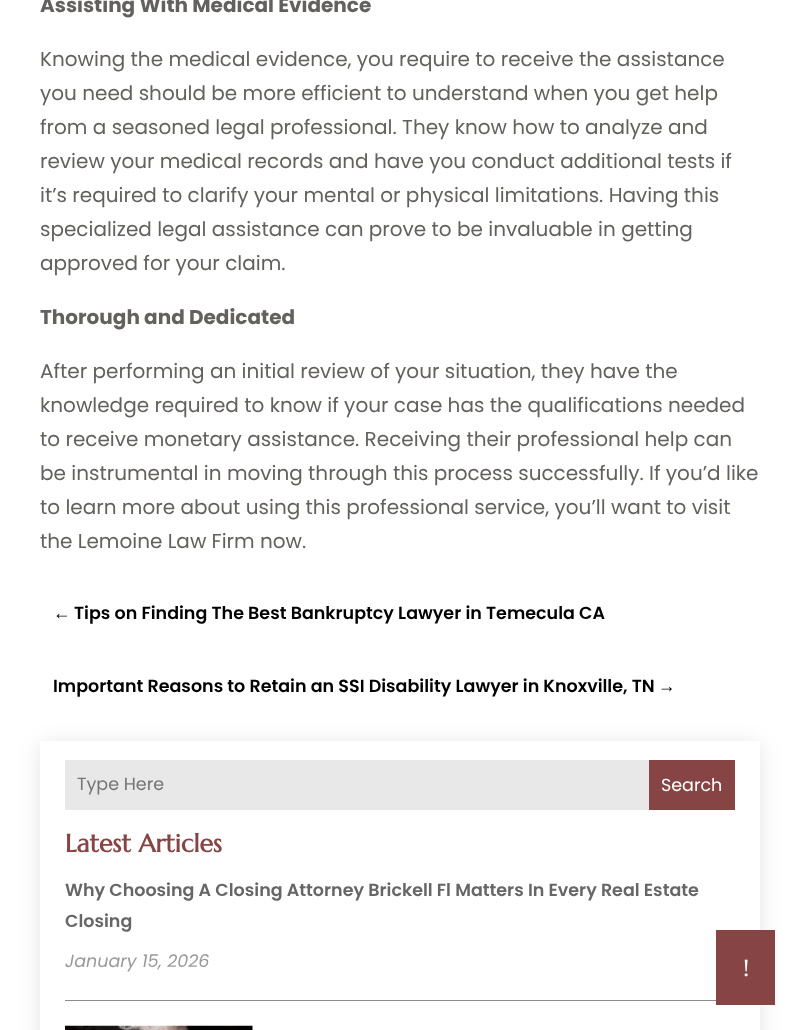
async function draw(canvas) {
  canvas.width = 799
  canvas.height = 1030
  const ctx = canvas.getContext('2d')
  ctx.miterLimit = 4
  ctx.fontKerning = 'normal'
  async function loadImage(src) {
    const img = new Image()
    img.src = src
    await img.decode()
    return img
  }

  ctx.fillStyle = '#fff'
  ctx.fillRect(0, 0, 799, 1030)
  ctx.font = 'bold 20px Poppins'
  ctx.fillStyle = '#63615d'
  ctx.fillText('Assisting With Medical Evidence', 40, 12)
  ctx.font = '20px Poppins'
  ctx.fillText('Knowing the medical evidence, you require to receive the assistance', 40, 66)
  ctx.fillText('you need should be more efficient to understand when you get help', 40, 100)
  ctx.fillText('from a seasoned legal professional. They know how to analyze and', 40, 134)
  ctx.fillText('review your medical records and have you conduct additional tests if', 40, 168)
  ctx.fillText('it’s required to clarify your mental or physical limitations. Having this', 40, 202)
  ctx.fillText('specialized legal assistance can prove to be invaluable in getting', 40, 236)
  ctx.fillText('approved for your claim.', 40, 270)
  ctx.font = 'bold 20px Poppins'
  ctx.fillText('Thorough and Dedicated', 40, 324)
  ctx.font = '20px Poppins'
  ctx.fillText('After performing an initial review of your situation, they have the', 40, 378)
  ctx.fillText('knowledge required to know if your case has the qualifications needed', 40, 412)
  ctx.fillText('to receive monetary assistance. Receiving their professional help can', 40, 446)
  ctx.fillText('be instrumental in moving through this process successfully. If you’d like', 40, 480)
  ctx.fillText('to learn more about using this professional service, you’ll want to visit', 40, 514)
  ctx.fillText('the Lemoine Law Firm now.', 40, 548)
  ctx.font = 'bold 17.5px Liberation Sans'
  ctx.fillStyle = '#000'
  ctx.fillText('←', 53, 619)
  ctx.font = '600 17.5px Poppins'
  ctx.fillText('Tips on Finding The Best Bankruptcy Lawyer in Temecula CA', 74, 619)
  ctx.fillText('Important Reasons to Retain an SSI Disability Lawyer in Knoxville, TN', 53, 692)
  ctx.font = 'bold 17.5px Liberation Sans'
  ctx.fillText('→', 658, 692)
  ctx.fillStyle = '#0000001a'
  ctx.filter = 'blur(11px)'
  ctx.beginPath()
  ctx.rect(40, 744, 720, 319)
  ctx.fill()
  ctx.filter = 'none'
  ctx.fillStyle = '#fff'
  ctx.fillRect(40, 741, 720, 289)
  ctx.fillStyle = '#e8e8e8'
  ctx.fillRect(65, 760, 584, 50)
  ctx.font = '17.5px Poppins'
  ctx.fillStyle = '#757575'
  ctx.fillText('Type Here', 77, 790)
  ctx.fillStyle = '#874444'
  ctx.fillRect(649, 760, 86, 50)
  ctx.fillStyle = '#fff'
  ctx.fillText('Search', 661, 791)
  ctx.font = 'bold 25px Marcellus'
  ctx.fillStyle = '#874444'
  ctx.fillText('Latest Articles', 65, 852)
  ctx.fillStyle = '#8d8b8b'
  ctx.fillRect(65, 1000, 651, 1)
  ctx.font = '600 17.5px Poppins'
  ctx.fillStyle = '#666'
  ctx.fillText('Why Choosing A Closing Attorney Brickell Fl Matters In Every Real Estate', 65, 896)
  ctx.fillText('Closing', 65, 927)
  ctx.font = 'italic 17.5px Poppins'
  ctx.fillStyle = '#999'
  ctx.fillText('January 15, 2026', 65, 967)
  ctx.drawImage(await loadImage('image0.png'), 65, 1025, 188, 5)
  ctx.fillStyle = '#874444'
  ctx.fillRect(716, 930, 59, 75)
  ctx.font = '25px Liberation Serif'
  ctx.fillStyle = '#fff'
  ctx.fillText('!', 742, 976)
}

draw(document.querySelector('canvas'))
